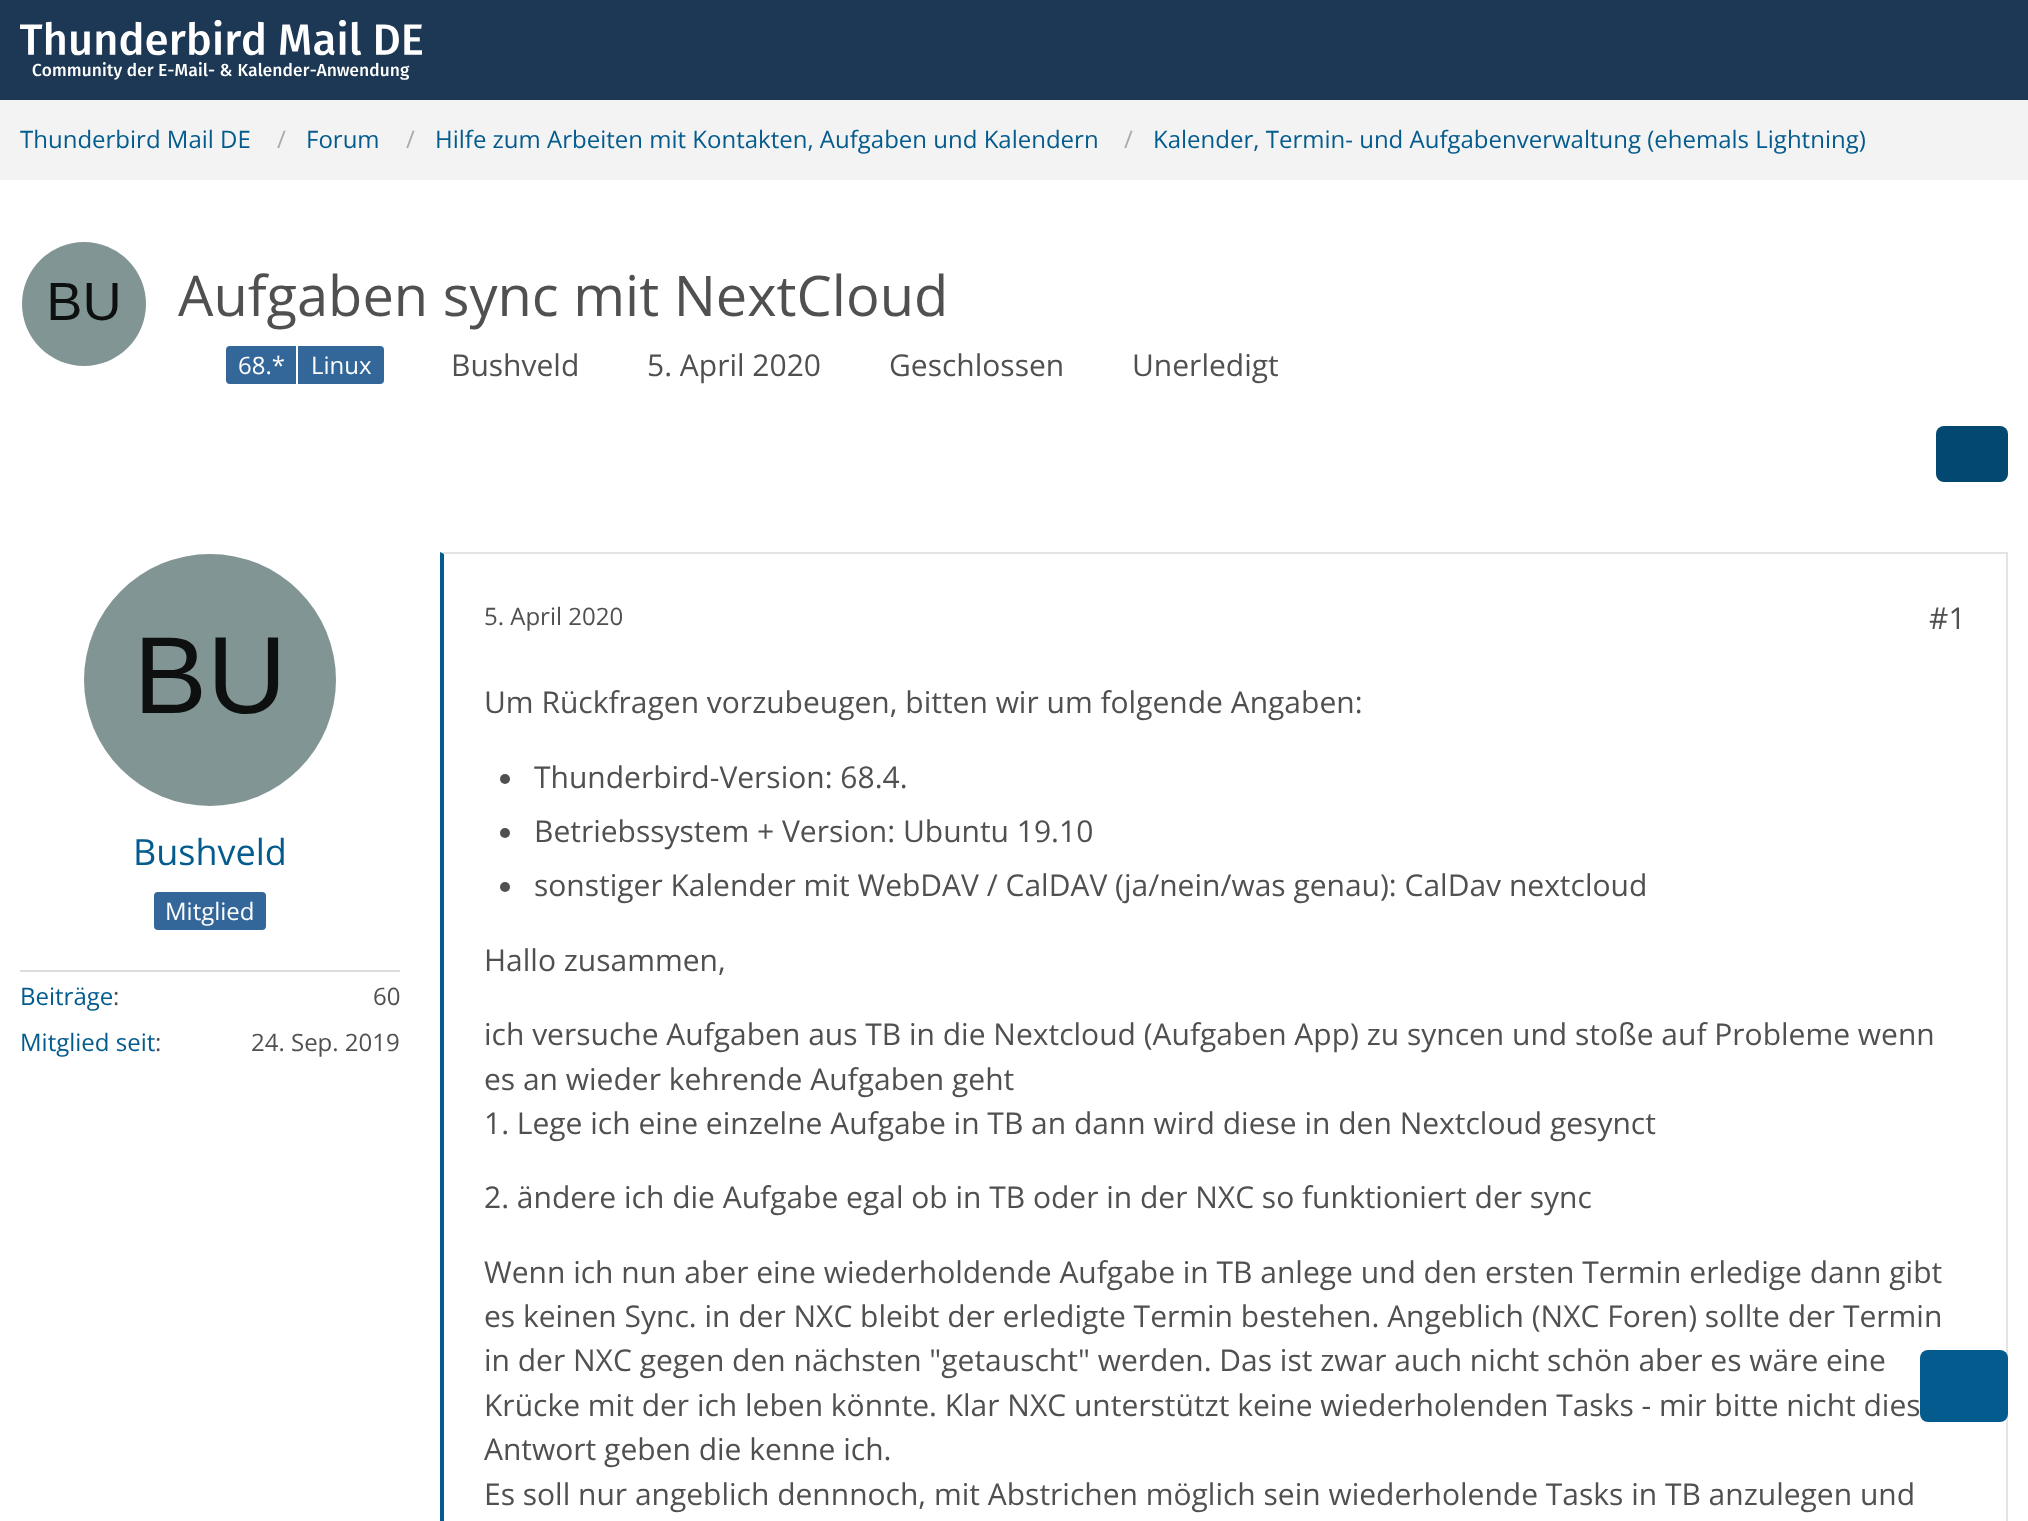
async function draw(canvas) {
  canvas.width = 2028
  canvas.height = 1521
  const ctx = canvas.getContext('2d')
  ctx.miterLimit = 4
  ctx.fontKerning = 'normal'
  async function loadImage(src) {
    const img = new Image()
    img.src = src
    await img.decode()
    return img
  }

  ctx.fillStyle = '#f3f3f3'
  ctx.fillRect(0, 0, 2028, 1521)
  ctx.fillStyle = '#1c3854'
  ctx.fillRect(0, 0, 2028, 100)
  ctx.drawImage(await loadImage('image0.png'), 20, 20, 402, 60)
  ctx.font = '24px Open Sans'
  ctx.fillStyle = '#045b8d'
  ctx.fillText('Thunderbird Mail DE', 20, 148)
  ctx.fillStyle = '#aaa'
  ctx.fillText('/', 277, 148)
  ctx.fillStyle = '#045b8d'
  ctx.fillText('Forum', 306, 148)
  ctx.fillStyle = '#aaa'
  ctx.fillText('/', 406, 148)
  ctx.fillStyle = '#045b8d'
  ctx.fillText('Hilfe zum Arbeiten mit Kontakten, Aufgaben und Kalendern', 435, 148)
  ctx.fillStyle = '#aaa'
  ctx.fillText('/', 1124, 148)
  ctx.fillStyle = '#045b8d'
  ctx.fillText('Kalender, Termin- und Aufgabenverwaltung (ehemals Lightning)', 1153, 148)
  ctx.fillStyle = '#fff'
  ctx.fillRect(0, 180, 2028, 1341)
  ctx.drawImage(await loadImage('image1.png'), 22, 242, 124, 124)
  ctx.font = '56px Open Sans'
  ctx.fillStyle = '#505050'
  ctx.fillText('Aufgaben sync mit NextCloud', 178, 316)
  ctx.fillStyle = '#369'
  ctx.beginPath()
  ctx.roundRect(226, 346, 70, 38, [4, 0, 0, 4])
  ctx.fill()
  ctx.font = '24px Open Sans'
  ctx.fillStyle = '#fff'
  ctx.fillText('68.*', 238, 374)
  ctx.fillStyle = '#369'
  ctx.beginPath()
  ctx.roundRect(298, 346, 86, 38, [0, 4, 4, 0])
  ctx.fill()
  ctx.fillStyle = '#fff'
  ctx.fillText('Linux', 311, 374)
  ctx.font = '30px Open Sans'
  ctx.fillStyle = '#505050'
  ctx.fillText('Bushveld', 451, 376)
  ctx.fillText('5. April 2020', 647, 376)
  ctx.fillText('Geschlossen', 889, 376)
  ctx.fillText('Unerledigt', 1132, 376)
  ctx.fillStyle = '#024870'
  ctx.beginPath()
  ctx.roundRect(1936, 426, 72, 56, 8)
  ctx.fill()
  ctx.drawImage(await loadImage('image2.png'), 84, 554, 252, 252)
  ctx.font = '36px Open Sans'
  ctx.fillStyle = '#045b8d'
  ctx.fillText('Bushveld', 133, 865)
  ctx.fillStyle = '#369'
  ctx.beginPath()
  ctx.roundRect(154, 892, 112, 38, 4)
  ctx.fill()
  ctx.font = '24px Open Sans'
  ctx.fillStyle = '#fff'
  ctx.fillText('Mitglied', 165, 920)
  ctx.fillStyle = '#dcdcdc'
  ctx.fillRect(20, 970, 380, 2)
  ctx.fillStyle = '#045b8d'
  ctx.fillText('Beiträge', 20, 1005)
  ctx.fillStyle = '#505050'
  ctx.fillText(':', 113, 1005)
  ctx.fillText('60', 373, 1005)
  ctx.fillStyle = '#045b8d'
  ctx.fillText('Mitglied seit', 20, 1051)
  ctx.fillStyle = '#505050'
  ctx.fillText(':', 155, 1051)
  ctx.fillText('24. Sep. 2019', 251, 1051)
  ctx.fillStyle = '#e4e4e4'
  ctx.beginPath()
  ctx.moveTo(440, 552)
  ctx.lineTo(2008, 552)
  ctx.lineTo(2006, 554)
  ctx.lineTo(444, 554)
  ctx.closePath()
  ctx.fill()
  ctx.fillRect(2006, 552, 2, 969)
  ctx.fillStyle = '#045b8d'
  ctx.beginPath()
  ctx.moveTo(440, 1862)
  ctx.lineTo(440, 552)
  ctx.lineTo(444, 554)
  ctx.lineTo(444, 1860)
  ctx.closePath()
  ctx.fill()
  ctx.fillStyle = '#505050'
  ctx.fillText('5. April 2020', 484, 625)
  ctx.font = '30px Open Sans'
  ctx.fillText('#1', 1929, 629)
  ctx.fillText('Um Rückfragen vorzubeugen, bitten wir um folgende Angaben:', 484, 713)
  ctx.beginPath()
  ctx.arc(505, 779, 5, 0, 2 * Math.PI)
  ctx.fill()
  ctx.fillText('Thunderbird-Version: 68.4.', 534, 788)
  ctx.beginPath()
  ctx.arc(505, 833, 5, 0, 2 * Math.PI)
  ctx.fill()
  ctx.fillText('Betriebssystem + Version: Ubuntu 19.10', 534, 842)
  ctx.beginPath()
  ctx.arc(505, 887, 5, 0, 2 * Math.PI)
  ctx.fill()
  ctx.fillText('sonstiger Kalender mit WebDAV / CalDAV (ja/nein/was genau): CalDav nextcloud', 534, 896)
  ctx.fillText('Hallo zusammen,', 484, 971)
  ctx.fillText('ich versuche Aufgaben aus TB in die Nextcloud (Aufgaben App) zu syncen und stoße auf Probleme wenn', 484, 1045)
  ctx.fillText('es an wieder kehrende Aufgaben geht', 484, 1090)
  ctx.fillText('1. Lege ich eine einzelne Aufgabe in TB an dann wird diese in den Nextcloud gesynct', 484, 1134)
  ctx.fillText('2. ändere ich die Aufgabe egal ob in TB oder in der NXC so funktioniert der sync', 484, 1208)
  ctx.fillText('Wenn ich nun aber eine wiederholdende Aufgabe in TB anlege und den ersten Termin erledige dann gibt', 484, 1283)
  ctx.fillText('es keinen Sync. in der NXC bleibt der erledigte Termin bestehen. Angeblich (NXC Foren) sollte der Termin', 484, 1327)
  ctx.fillText('in der NXC gegen den nächsten "getauscht" werden. Das ist zwar auch nicht schön aber es wäre eine', 484, 1371)
  ctx.fillText('Krücke mit der ich leben könnte. Klar NXC unterstützt keine wiederholenden Tasks - mir bitte nicht dies', 484, 1416)
  ctx.fillText('Antwort geben die kenne ich.', 484, 1460)
  ctx.fillText('Es soll nur angeblich dennnoch, mit Abstrichen möglich sein wiederholende Tasks in TB anzulegen und', 484, 1505)
  ctx.fillStyle = '#045b8d'
  ctx.beginPath()
  ctx.roundRect(1920, 1350, 88, 72, 8)
  ctx.fill()
}

draw(document.querySelector('canvas'))
